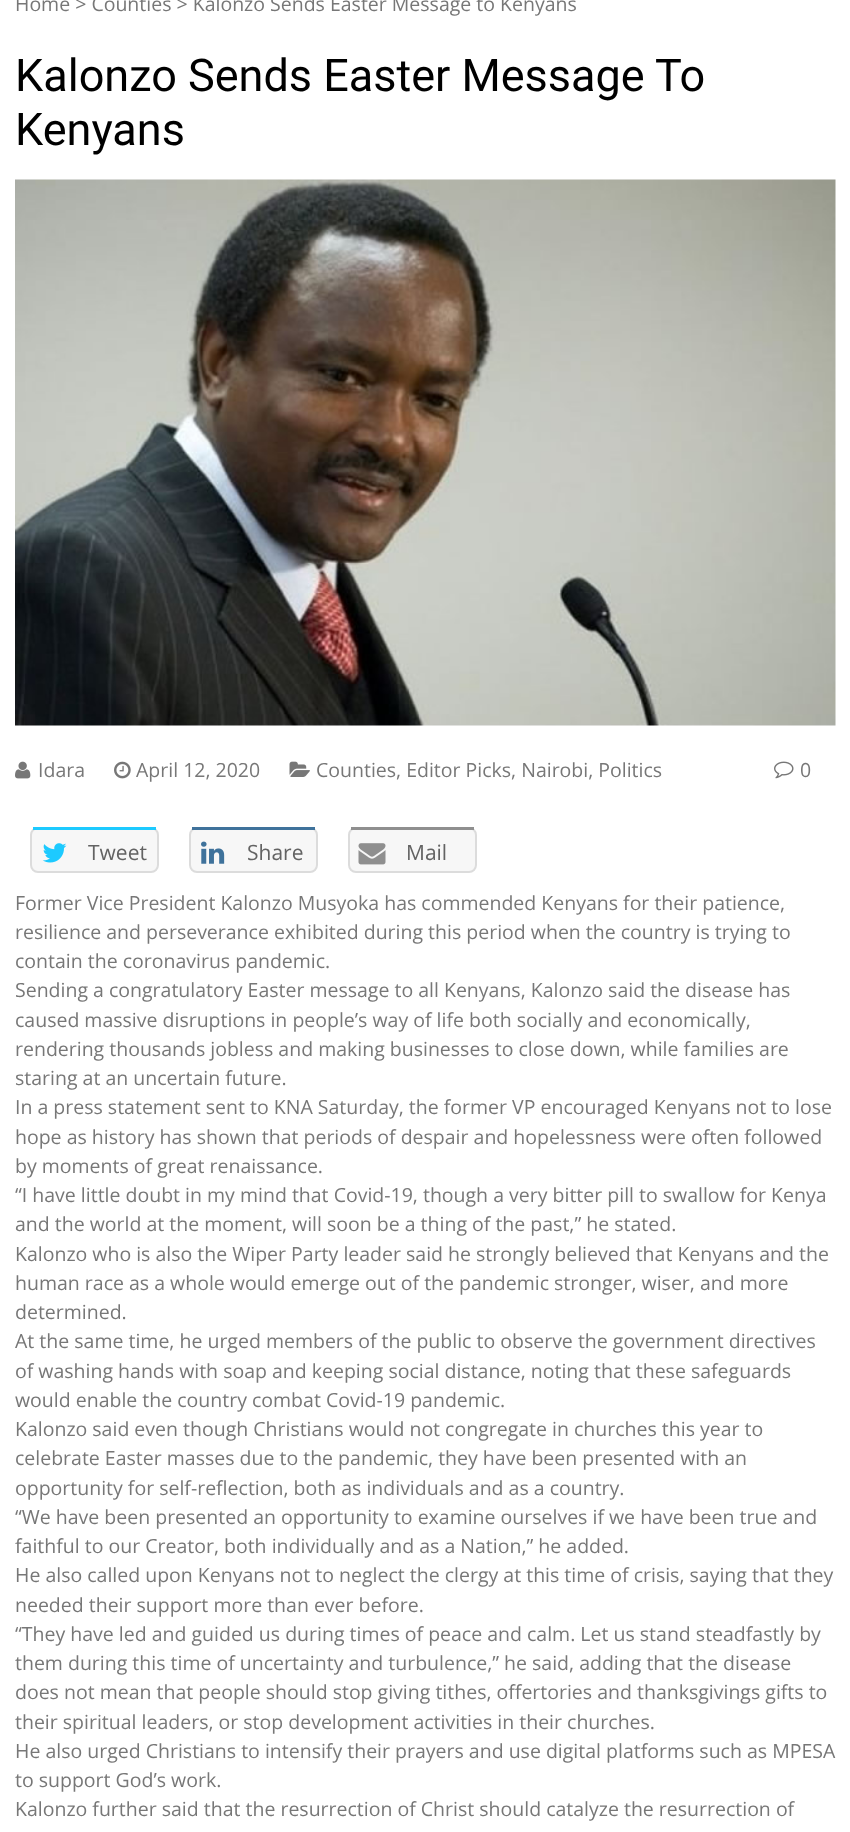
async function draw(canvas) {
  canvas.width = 850
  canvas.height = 1832
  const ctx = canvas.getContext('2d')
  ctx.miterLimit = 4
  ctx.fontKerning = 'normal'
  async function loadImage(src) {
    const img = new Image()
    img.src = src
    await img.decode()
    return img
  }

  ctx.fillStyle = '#fff'
  ctx.fillRect(0, 0, 850, 1832)
  ctx.font = '19.5px Open Sans'
  ctx.fillStyle = '#777'
  ctx.fillText('Home > Counties > Kalonzo Sends Easter Message to Kenyans', 15, 11)
  ctx.font = '45px Roboto'
  ctx.fillStyle = '#000'
  ctx.fillText('Kalonzo Sends Easter Message To', 15, 91)
  ctx.fillText('Kenyans', 15, 145)
  ctx.drawImage(await loadImage('image0.png'), 15, 179, 821, 547)
  ctx.drawImage(await loadImage('image1.png'), 15, 761, 16, 18)
  ctx.font = '19.5px Open Sans'
  ctx.fillStyle = '#777'
  ctx.fillText('Idara', 38, 777)
  ctx.drawImage(await loadImage('image2.png'), 114, 761, 17, 18)
  ctx.fillText('April 12, 2020', 136, 777)
  ctx.drawImage(await loadImage('image3.png'), 289, 761, 21, 16)
  ctx.fillText('Counties, Editor Picks, Nairobi, Politics', 316, 777)
  ctx.drawImage(await loadImage('image4.png'), 774, 761, 20, 18)
  ctx.fillText('0', 800, 777)
  ctx.fillStyle = '#f7f7f7'
  ctx.beginPath()
  ctx.roundRect(31, 828, 127, 44, 7)
  ctx.fill()
  ctx.strokeStyle = '#dcdcdc'
  ctx.lineWidth = 2
  ctx.stroke()
  ctx.fillStyle = '#1dcaff'
  ctx.fillRect(33, 827, 123, 3)
  ctx.drawImage(await loadImage('image5.png'), 42, 843, 25, 20)
  ctx.font = '21px Open Sans'
  ctx.fillStyle = '#636363'
  ctx.fillText('Tweet', 88, 860)
  ctx.fillStyle = '#f7f7f7'
  ctx.beginPath()
  ctx.roundRect(190, 828, 127, 44, 7)
  ctx.fill()
  ctx.stroke()
  ctx.fillStyle = '#3f729b'
  ctx.fillRect(192, 827, 123, 3)
  ctx.drawImage(await loadImage('image6.png'), 201, 841, 24, 23)
  ctx.fillStyle = '#636363'
  ctx.fillText('Share', 247, 860)
  ctx.fillStyle = '#f7f7f7'
  ctx.beginPath()
  ctx.roundRect(349, 828, 127, 44, 7)
  ctx.fill()
  ctx.stroke()
  ctx.fillStyle = '#8f8f8f'
  ctx.fillRect(351, 827, 123, 3)
  ctx.drawImage(await loadImage('image7.png'), 358, 843, 28, 22)
  ctx.fillStyle = '#636363'
  ctx.fillText('Mail', 406, 860)
  ctx.font = '19.5px Open Sans'
  ctx.fillStyle = '#777'
  ctx.fillText('Former Vice President Kalonzo Musyoka has commended Kenyans for their patience,', 15, 910)
  ctx.fillText('resilience and perseverance exhibited during this period when the country is trying to', 15, 939)
  ctx.fillText('contain the coronavirus pandemic.', 15, 968)
  ctx.fillText('Sending a congratulatory Easter message to all Kenyans, Kalonzo said the disease has', 15, 997)
  ctx.fillText('caused massive disruptions in people’s way of life both socially and economically,', 15, 1027)
  ctx.fillText('rendering thousands jobless and making businesses to close down, while families are', 15, 1056)
  ctx.fillText('staring at an uncertain future.', 15, 1085)
  ctx.fillText('In a press statement sent to KNA Saturday, the former VP encouraged Kenyans not to lose', 15, 1114)
  ctx.fillText('hope as history has shown that periods of despair and hopelessness were often followed', 15, 1144)
  ctx.fillText('by moments of great renaissance.', 15, 1173)
  ctx.fillText('“I have little doubt in my mind that Covid-19, though a very bitter pill to swallow for Kenya', 15, 1202)
  ctx.fillText('and the world at the moment, will soon be a thing of the past,” he stated.', 15, 1231)
  ctx.fillText('Kalonzo who is also the Wiper Party leader said he strongly believed that Kenyans and the', 15, 1261)
  ctx.fillText('human race as a whole would emerge out of the pandemic stronger, wiser, and more', 15, 1290)
  ctx.fillText('determined.', 15, 1319)
  ctx.fillText('At the same time, he urged members of the public to observe the government directives', 15, 1348)
  ctx.fillText('of washing hands with soap and keeping social distance, noting that these safeguards', 15, 1378)
  ctx.fillText('would enable the country combat Covid-19 pandemic.', 15, 1407)
  ctx.fillText('Kalonzo said even though Christians would not congregate in churches this year to', 15, 1436)
  ctx.fillText('celebrate Easter masses due to the pandemic, they have been presented with an', 15, 1465)
  ctx.fillText('opportunity for self-reflection, both as individuals and as a country.', 15, 1495)
  ctx.fillText('“We have been presented an opportunity to examine ourselves if we have been true and', 15, 1524)
  ctx.fillText('faithful to our Creator, both individually and as a Nation,” he added.', 15, 1553)
  ctx.fillText('He also called upon Kenyans not to neglect the clergy at this time of crisis, saying that they', 15, 1582)
  ctx.fillText('needed their support more than ever before.', 15, 1612)
  ctx.fillText('“They have led and guided us during times of peace and calm. Let us stand steadfastly by', 15, 1641)
  ctx.fillText('them during this time of uncertainty and turbulence,” he said, adding that the disease', 15, 1670)
  ctx.fillText('does not mean that people should stop giving tithes, offertories and thanksgivings gifts to', 15, 1699)
  ctx.fillText('their spiritual leaders, or stop development activities in their churches.', 15, 1729)
  ctx.fillText('He also urged Christians to intensify their prayers and use digital platforms such as MPESA', 15, 1758)
  ctx.fillText('to support God’s work.', 15, 1787)
  ctx.fillText('Kalonzo further said that the resurrection of Christ should catalyze the resurrection of', 15, 1816)
}

draw(document.querySelector('canvas'))
